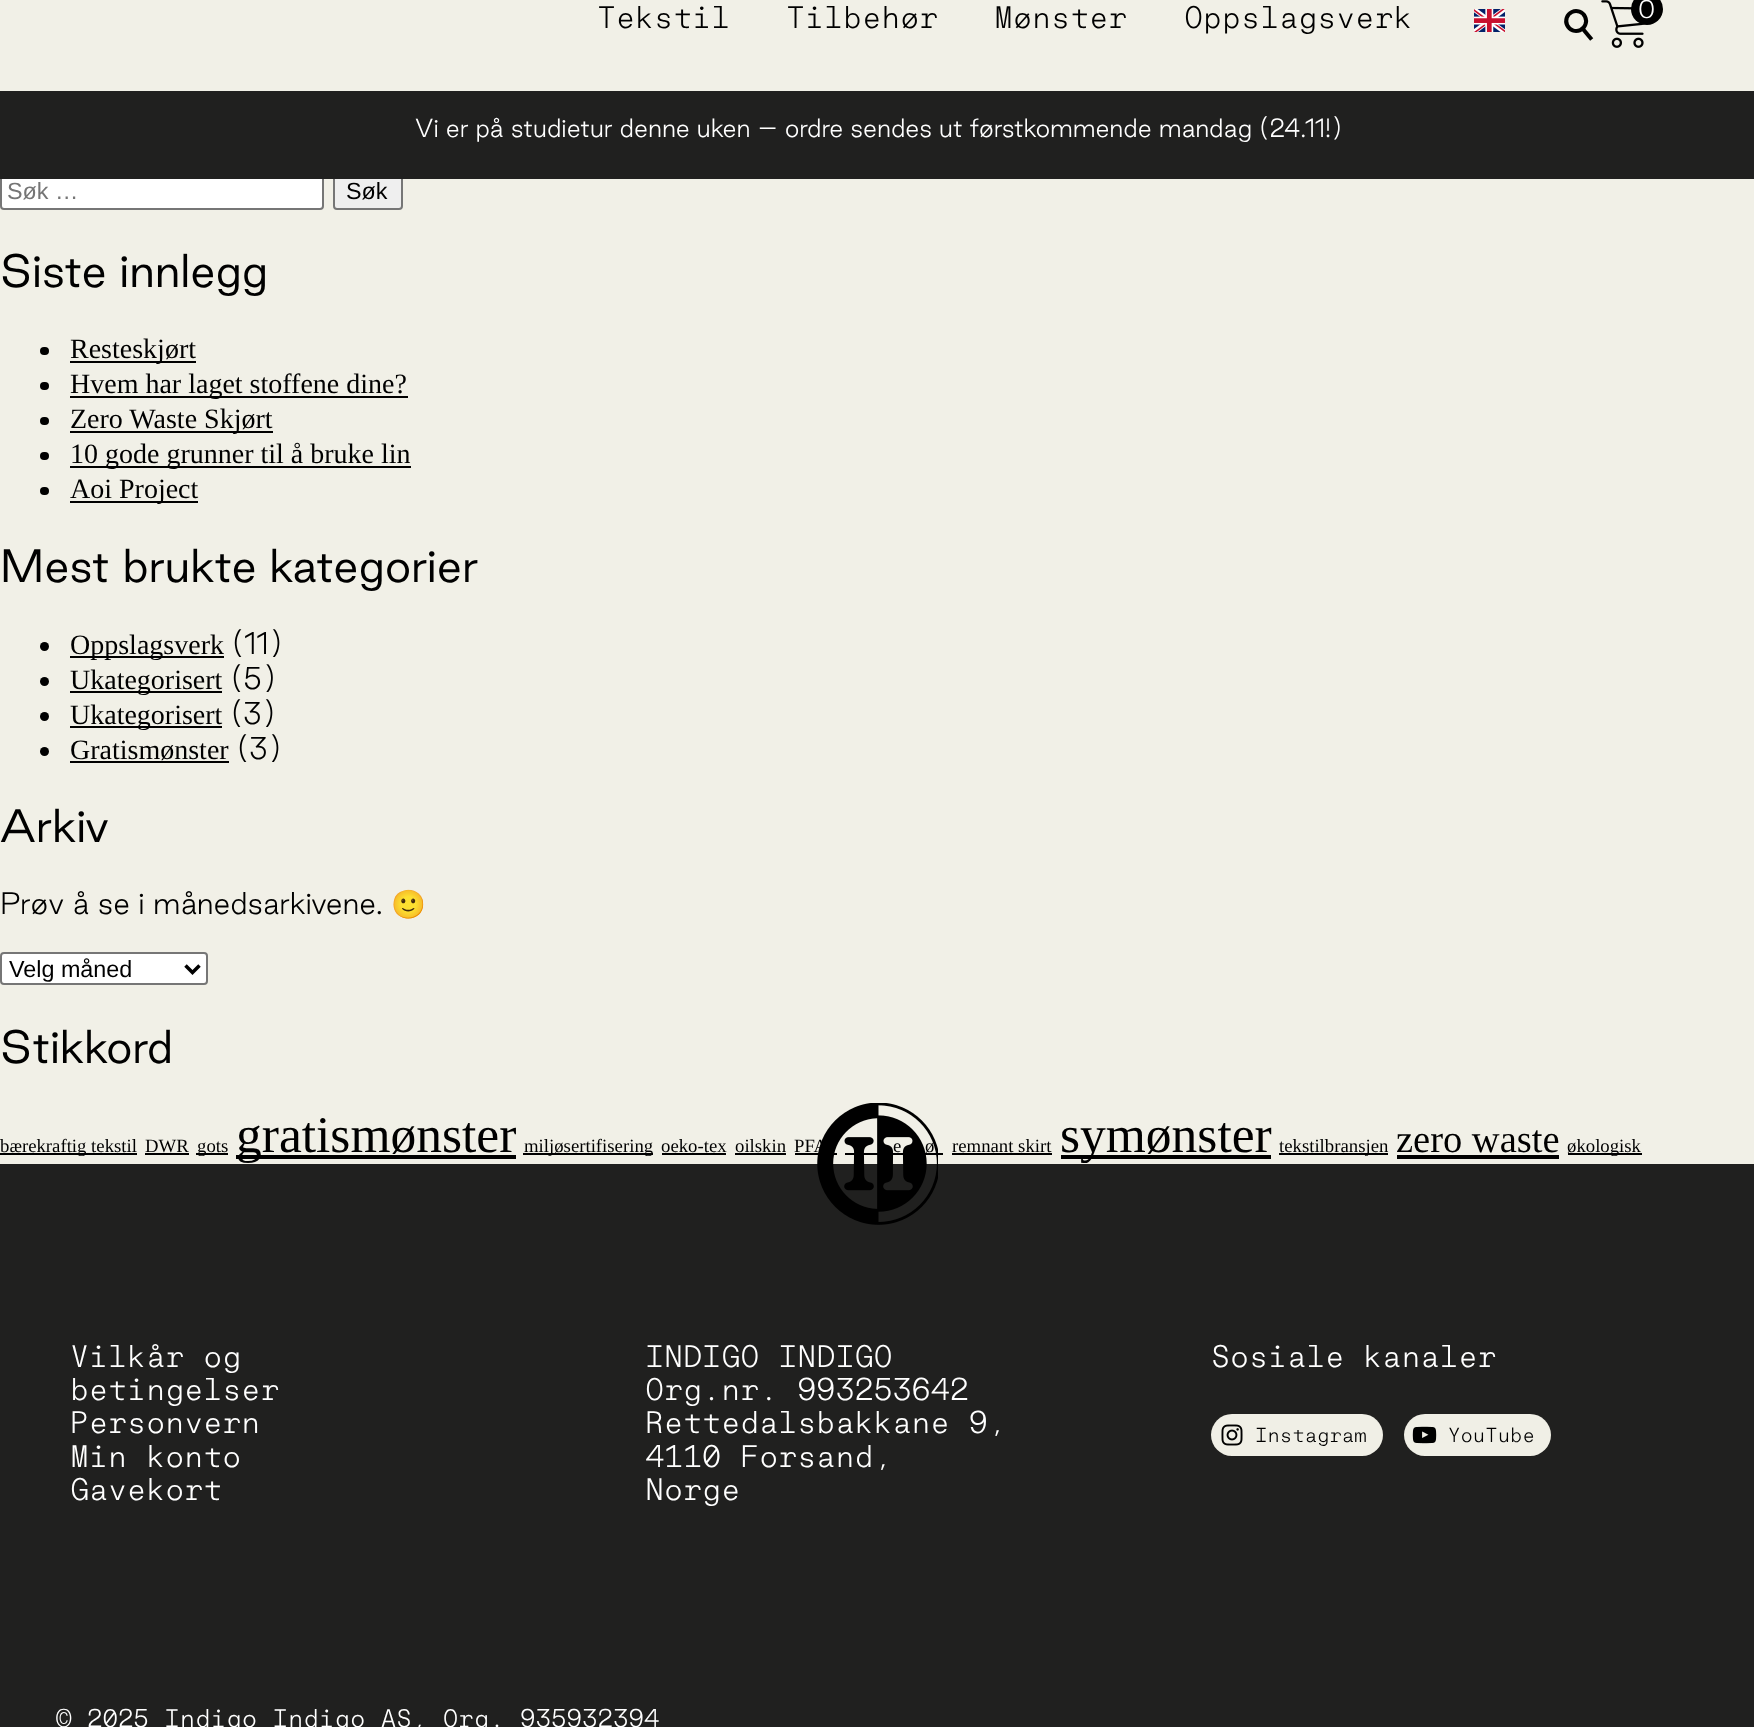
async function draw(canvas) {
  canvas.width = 1754
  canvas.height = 1727
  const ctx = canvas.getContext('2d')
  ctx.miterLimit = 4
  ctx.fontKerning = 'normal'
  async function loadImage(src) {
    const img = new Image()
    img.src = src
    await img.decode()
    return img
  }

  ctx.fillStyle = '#f1f0e7'
  ctx.fillRect(0, 0, 1754, 1727)
  ctx.font = '100 28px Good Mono'
  ctx.fillStyle = '#000'
  ctx.fillText('Tekstil', 597, 28)
  ctx.fillText('Tilbehør', 786, 28)
  ctx.fillText('Mønster', 994, 28)
  ctx.fillText('Oppslagsverk', 1184, 28)
  ctx.drawImage(await loadImage('image0.png'), 1474, 9, 31, 23)
  ctx.font = '47px DejaVu Sans'
  ctx.save()
  ctx.translate(1570, 3)
  ctx.rotate(110 * Math.PI / 180)
  ctx.fillText('☌', 0, 0)
  ctx.restore()
  ctx.drawImage(await loadImage('image1.png'), 1601, 0, 44, 48)
  ctx.beginPath()
  ctx.arc(1647, 9, 16, 0, 2 * Math.PI)
  ctx.fill()
  ctx.font = '100 22.75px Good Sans'
  ctx.fillStyle = '#fff'
  ctx.fillText('0', 1638, 18)
  ctx.beginPath()
  ctx.roundRect(1, 174, 322, 35, 3)
  ctx.fill()
  ctx.strokeStyle = '#767676'
  ctx.lineWidth = 2
  ctx.stroke()
  ctx.fillStyle = '#efefef'
  ctx.beginPath()
  ctx.roundRect(334, 174, 68, 35, 3)
  ctx.fill()
  ctx.stroke()
  ctx.fillStyle = '#20201f'
  ctx.fillRect(0, 91, 1754, 88)
  ctx.font = '100 23.35px Good Sans'
  ctx.fillStyle = '#fff'
  ctx.fillText('Vi er på studietur denne uken – ordre sendes ut førstkommende mandag (24.11!)', 415, 137)
  ctx.font = '23.35px Liberation Sans'
  ctx.fillStyle = '#757575'
  ctx.fillText('Søk …', 7, 199)
  ctx.fillStyle = '#000'
  ctx.fillText('Søk', 346, 199)
  ctx.font = '300 42px Good Sans'
  ctx.fillText('Siste innlegg', 0, 287)
  ctx.beginPath()
  ctx.roundRect(40, 347, 9, 8, 4)
  ctx.fill()
  ctx.fillRect(70, 361, 126, 2)
  ctx.font = '28px Liberation Serif'
  ctx.fillText('Resteskjørt', 70, 358)
  ctx.beginPath()
  ctx.roundRect(40, 382, 9, 8, 4)
  ctx.fill()
  ctx.fillRect(70, 396, 338, 2)
  ctx.fillText('Hvem har laget stoffene dine?', 70, 393)
  ctx.beginPath()
  ctx.roundRect(40, 417, 9, 8, 4)
  ctx.fill()
  ctx.fillRect(70, 431, 203, 2)
  ctx.fillText('Zero Waste Skjørt', 70, 428)
  ctx.beginPath()
  ctx.roundRect(40, 452, 9, 8, 4)
  ctx.fill()
  ctx.fillRect(70, 466, 341, 2)
  ctx.fillText('10 gode grunner til å bruke lin', 70, 463)
  ctx.beginPath()
  ctx.roundRect(40, 487, 9, 8, 4)
  ctx.fill()
  ctx.fillRect(70, 501, 128, 2)
  ctx.fillText('Aoi Project', 70, 498)
  ctx.font = '300 42px Good Sans'
  ctx.fillText('Mest brukte kategorier', 0, 582)
  ctx.beginPath()
  ctx.arc(44.5, 646.5, 4.5, 0, 2 * Math.PI)
  ctx.fill()
  ctx.fillRect(70, 656, 154, 2)
  ctx.font = '28px Liberation Serif'
  ctx.fillText('Oppslagsverk', 70, 654)
  ctx.font = '100 28px Good Sans'
  ctx.fillText('(11)', 232, 654)
  ctx.beginPath()
  ctx.arc(44.5, 681.5, 4.5, 0, 2 * Math.PI)
  ctx.fill()
  ctx.fillRect(70, 691, 152, 2)
  ctx.font = '28px Liberation Serif'
  ctx.fillText('Ukategorisert', 70, 689)
  ctx.font = '100 28px Good Sans'
  ctx.fillText('(5)', 231, 689)
  ctx.beginPath()
  ctx.arc(44.5, 716.5, 4.5, 0, 2 * Math.PI)
  ctx.fill()
  ctx.fillRect(70, 726, 152, 2)
  ctx.font = '28px Liberation Serif'
  ctx.fillText('Ukategorisert', 70, 724)
  ctx.font = '100 28px Good Sans'
  ctx.fillText('(3)', 231, 724)
  ctx.beginPath()
  ctx.arc(44.5, 751.5, 4.5, 0, 2 * Math.PI)
  ctx.fill()
  ctx.font = '28px Liberation Serif'
  ctx.fillText('Gratismønster', 70, 759)
  ctx.fillRect(70, 761, 159, 2)
  ctx.font = '100 28px Good Sans'
  ctx.fillText('(3)', 237, 759)
  ctx.font = '300 42px Good Sans'
  ctx.fillText('Arkiv', 0, 842)
  ctx.font = '100 28px Good Sans'
  ctx.fillText('Prøv å se i månedsarkivene.', 0, 914)
  ctx.font = '28px Noto Color Emoji'
  ctx.fillText('🙂', 391, 914)
  ctx.fillStyle = '#fff'
  ctx.beginPath()
  ctx.roundRect(1, 953, 206, 31, 3)
  ctx.fill()
  ctx.stroke()
  ctx.beginPath()
  ctx.moveTo(185.5, 965.5)
  ctx.lineTo(192.5, 972.5)
  ctx.lineTo(199.5, 965.5)
  ctx.strokeStyle = '#000'
  ctx.lineWidth = 3.5
  ctx.stroke()
  ctx.font = '23.35px Liberation Sans'
  ctx.fillStyle = '#000'
  ctx.fillText('Velg måned', 9, 977)
  ctx.font = '300 42px Good Sans'
  ctx.fillText('Stikkord', 0, 1063)
  ctx.fillRect(0, 1153, 137, 2)
  ctx.font = '18.75px Liberation Serif'
  ctx.fillText('bærekraftig tekstil', 0, 1152)
  ctx.fillText('DWR', 145, 1152)
  ctx.fillRect(145, 1153, 44, 2)
  ctx.fillRect(196, 1153, 32, 2)
  ctx.fillText('gots', 197, 1152)
  ctx.fillRect(236, 1155, 280, 4)
  ctx.font = '51.5px Liberation Serif'
  ctx.fillText('gratismønster', 236, 1152)
  ctx.fillRect(523, 1153, 130, 2)
  ctx.font = '18.75px Liberation Serif'
  ctx.fillText('miljøsertifisering', 524, 1152)
  ctx.fillText('oeko-tex', 661, 1152)
  ctx.fillRect(662, 1153, 64, 2)
  ctx.fillText('oilskin', 735, 1152)
  ctx.fillRect(735, 1153, 51, 2)
  ctx.fillText('PFA', 794, 1152)
  ctx.fillRect(795, 1153, 42, 2)
  ctx.fillText('e', 893, 1152)
  ctx.fillRect(887, 1153, 56, 2)
  ctx.fillText('ø', 925, 1152)
  ctx.fillText('remnant skirt', 952, 1152)
  ctx.fillRect(952, 1153, 100, 2)
  ctx.fillRect(1061, 1155, 210, 4)
  ctx.font = '51.5px Liberation Serif'
  ctx.fillText('symønster', 1060, 1152)
  ctx.fillRect(1279, 1153, 109, 2)
  ctx.font = '18.75px Liberation Serif'
  ctx.fillText('tekstilbransjen', 1279, 1152)
  ctx.font = '38.5px Liberation Serif'
  ctx.fillText('zero waste', 1396, 1152)
  ctx.fillRect(1397, 1155, 162, 4)
  ctx.fillRect(1568, 1153, 74, 2)
  ctx.font = '18.75px Liberation Serif'
  ctx.fillText('økologisk', 1567, 1152)
  ctx.fillRect(845, 1153, 34, 2)
  ctx.fillStyle = '#20201f'
  ctx.fillRect(0, 1164, 1754, 563)
  ctx.drawImage(await loadImage('image2.png'), 817, 1103, 121, 122)
  ctx.font = '100 28px Good Mono'
  ctx.fillStyle = '#fff'
  ctx.fillText('Vilkår og', 70, 1367)
  ctx.fillText('betingelser', 70, 1400)
  ctx.fillText('Personvern', 70, 1433)
  ctx.fillText('Min konto', 70, 1467)
  ctx.fillText('Gavekort', 70, 1500)
  ctx.fillText('INDIGO INDIGO', 645, 1367)
  ctx.fillText('Org.nr. 993253642', 645, 1400)
  ctx.fillText('Rettedalsbakkane 9,', 645, 1433)
  ctx.fillText('4110 Forsand,', 645, 1467)
  ctx.fillText('Norge', 645, 1500)
  ctx.fillText('Sosiale kanaler', 1211, 1367)
  ctx.fillStyle = '#f0efe6'
  ctx.beginPath()
  ctx.roundRect(1211, 1414, 172, 42, 21)
  ctx.fill()
  ctx.drawImage(await loadImage('image3.png'), 1221, 1424, 22, 22)
  ctx.font = '100 18.25px Good Mono'
  ctx.fillStyle = '#000'
  ctx.fillText('Instagram', 1255, 1442)
  ctx.fillStyle = '#f0efe6'
  ctx.beginPath()
  ctx.roundRect(1404, 1414, 147, 42, 21)
  ctx.fill()
  ctx.drawImage(await loadImage('image4.png'), 1412, 1426, 25, 18)
  ctx.fillStyle = '#000'
  ctx.fillText('YouTube', 1448, 1442)
  ctx.font = '100 22.75px Good Mono'
  ctx.fillStyle = '#fff'
  ctx.fillText('© 2025 Indigo Indigo AS, Org. 935932394', 56, 1727)
}

draw(document.querySelector('canvas'))
